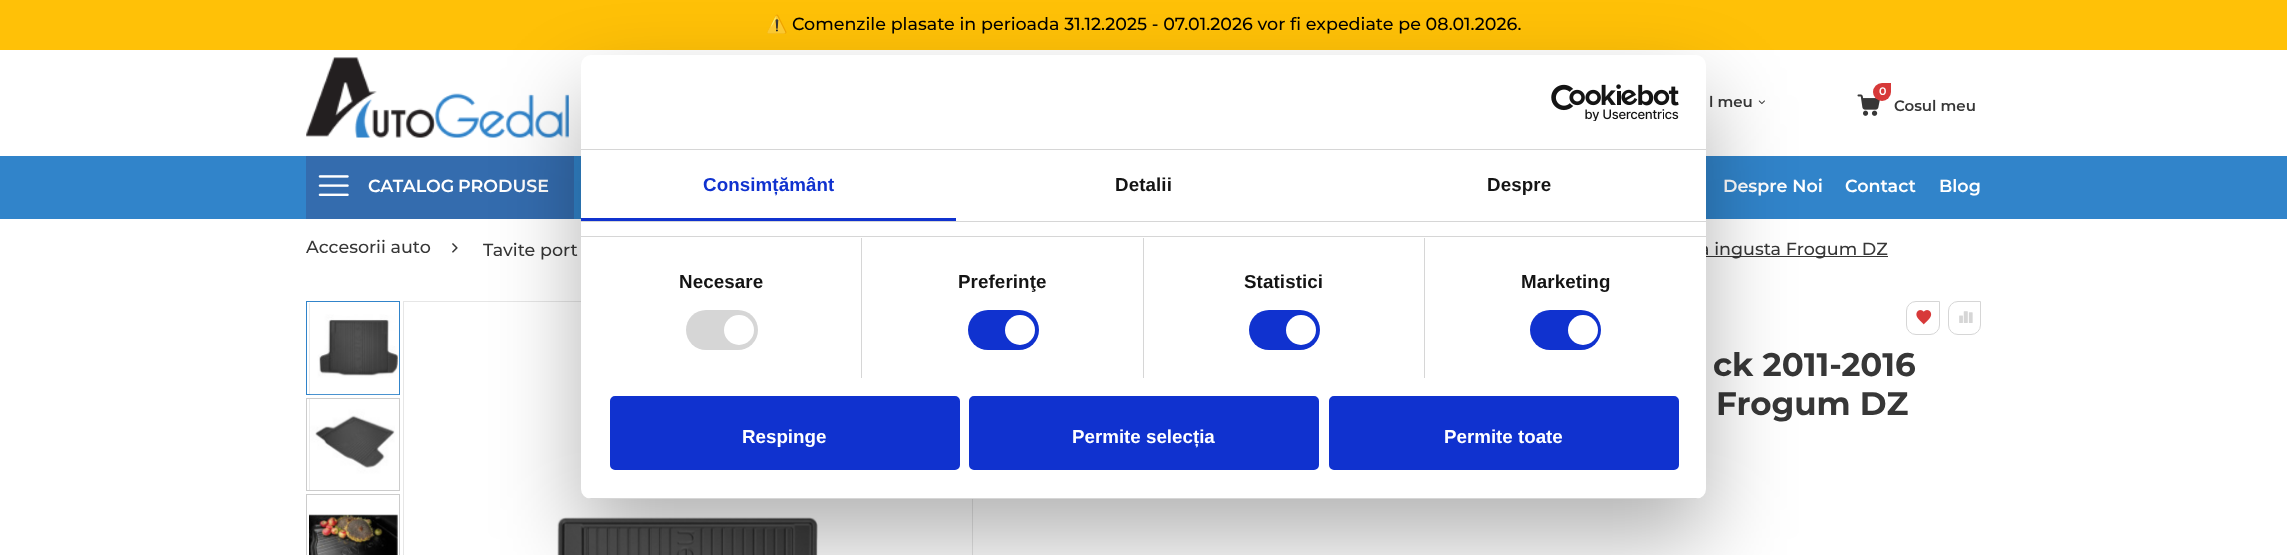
async function draw(canvas) {
  canvas.width = 2287
  canvas.height = 555
  const ctx = canvas.getContext('2d')
  ctx.miterLimit = 4
  ctx.fontKerning = 'normal'
  async function loadImage(src) {
    const img = new Image()
    img.src = src
    await img.decode()
    return img
  }

  ctx.fillStyle = '#fff'
  ctx.fillRect(0, 0, 2287, 555)
  ctx.fillStyle = '#ffc107'
  ctx.fillRect(0, 0, 2287, 50)
  ctx.font = '17.5px Noto Color Emoji'
  ctx.fillStyle = '#000'
  ctx.fillText('⚠️', 766, 30)
  ctx.font = '500 17.5px Montserrat'
  ctx.fillText('Comenzile plasate in perioada 31.12.2025 - 07.01.2026 vor fi expediate pe 08.01.2026.', 792, 30)
  ctx.drawImage(await loadImage('image0.png'), 306, 57, 263, 81)
  ctx.font = '600 15px Montserrat'
  ctx.fillStyle = '#373737'
  ctx.fillText('l meu', 1709, 107)
  ctx.drawImage(await loadImage('image1.png'), 1758, 100, 7, 5)
  ctx.drawImage(await loadImage('image2.png'), 1857, 94, 23, 22)
  ctx.fillStyle = '#d73939'
  ctx.beginPath()
  ctx.roundRect(1873, 83, 18, 18, [9, 0, 9, 9])
  ctx.fill()
  ctx.font = '600 11px Montserrat'
  ctx.fillStyle = '#fff'
  ctx.fillText('0', 1879, 95)
  ctx.font = '600 15px Montserrat'
  ctx.fillStyle = '#373737'
  ctx.fillText('Cosul meu', 1894, 111)
  ctx.fillStyle = '#3184ca'
  ctx.fillRect(0, 156, 2287, 63)
  ctx.fillStyle = '#346cae'
  ctx.fillRect(306, 156, 268, 63)
  ctx.drawImage(await loadImage('image3.png'), 318, 175, 31, 21)
  ctx.font = '600 17.5px Montserrat'
  ctx.fillStyle = '#fff'
  ctx.fillText('CATALOG', 368, 192)
  ctx.fillText('PRODUSE', 458, 192)
  ctx.fillText('Despre Noi', 1723, 192)
  ctx.fillText('Contact', 1845, 192)
  ctx.fillText('Blog', 1939, 192)
  ctx.font = '500 17.5px Montserrat'
  ctx.fillStyle = '#373737'
  ctx.fillText('Accesorii auto', 306, 253)
  ctx.drawImage(await loadImage('image4.png'), 452, 243, 6, 10)
  ctx.fillText('Tavite port', 483, 256)
  ctx.fillRect(1706, 256, 182, 1)
  ctx.fillText('a ingusta Frogum DZ', 1699, 255)
  ctx.strokeStyle = '#3184ca'
  ctx.strokeRect(306.5, 301.5, 93, 93)
  ctx.strokeStyle = '#e6e6e6'
  ctx.strokeRect(403.5, 301.5, 569, 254)
  ctx.save()
  ctx.beginPath()
  ctx.rect(308, 303, 91, 91)
  ctx.clip()
  ctx.strokeRect(309.5, 298.5, 99, 99)
  ctx.restore()
  ctx.drawImage(await loadImage('image5.png'), 309, 303, 90, 92)
  ctx.strokeStyle = '#ccc'
  ctx.strokeRect(306.5, 398.5, 93, 92)
  ctx.save()
  ctx.beginPath()
  ctx.rect(308, 399, 91, 91)
  ctx.clip()
  ctx.strokeStyle = '#e6e6e6'
  ctx.strokeRect(309.5, 394.5, 99, 99)
  ctx.restore()
  ctx.drawImage(await loadImage('image6.png'), 309, 399, 86, 91)
  ctx.strokeRect(306.5, 494.5, 93, 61)
  ctx.drawImage(await loadImage('image7.png'), 309, 514, 89, 41)
  ctx.drawImage(await loadImage('image8.png'), 557, 517, 261, 38)
  ctx.beginPath()
  ctx.roundRect(1906.5, 301.5, 33, 33, [9.5, 0, 9.5, 9.5])
  ctx.strokeStyle = '#d6d6d6'
  ctx.stroke()
  ctx.drawImage(await loadImage('image9.png'), 1916, 310, 16, 15)
  ctx.beginPath()
  ctx.roundRect(1948.5, 301.5, 32, 33, [9.5, 0, 9.5, 9.5])
  ctx.stroke()
  ctx.drawImage(await loadImage('image10.png'), 1959, 311, 14, 12)
  ctx.font = 'bold 32.5px Montserrat'
  ctx.fillText('ck 2011-2016', 1713, 376)
  ctx.fillText('Frogum DZ', 1716, 415)
  ctx.fillStyle = '#0000004d'
  ctx.filter = 'blur(42.5px)'
  ctx.beginPath()
  ctx.roundRect(581, 95, 1125, 444, 10)
  ctx.fill()
  ctx.filter = 'none'
  ctx.fillStyle = '#fff'
  ctx.beginPath()
  ctx.roundRect(581, 55, 1125, 444, 10)
  ctx.fill()
  ctx.fillStyle = '#d6d6d6'
  ctx.fillRect(581, 149, 1125, 1)
  ctx.drawImage(await loadImage('image11.png'), 1551, 84, 128, 37)
  ctx.fillRect(581, 221, 1125, 1)
  ctx.fillStyle = '#1032cf'
  ctx.fillRect(581, 218, 375, 3)
  ctx.letterSpacing = '0.1px'
  ctx.font = 'bold 18.75px Liberation Sans'
  ctx.fillText('Consimțământ', 703, 191)
  ctx.fillStyle = '#141414'
  ctx.fillText('Detalii', 1115, 191)
  ctx.fillText('Despre', 1487, 191)
  ctx.fillStyle = '#d6d6d6'
  ctx.fillRect(581, 236, 1125, 1)
  ctx.fillRect(861, 238, 1, 140)
  ctx.fillStyle = '#141414'
  ctx.fillText('Necesare', 679, 288)
  ctx.fillStyle = '#d6d6d6'
  ctx.beginPath()
  ctx.roundRect(686, 310, 72, 40, 20)
  ctx.fill()
  ctx.fillStyle = '#fff'
  ctx.beginPath()
  ctx.arc(739, 330, 15, 0, 2 * Math.PI)
  ctx.fill()
  ctx.fillStyle = '#d6d6d6'
  ctx.fillRect(1143, 238, 1, 140)
  ctx.fillStyle = '#141414'
  ctx.fillText('Preferinţe', 958, 288)
  ctx.fillStyle = '#1032cf'
  ctx.beginPath()
  ctx.roundRect(968, 310, 71, 40, 20)
  ctx.fill()
  ctx.fillStyle = '#fff'
  ctx.beginPath()
  ctx.arc(1020, 330, 15, 0, 2 * Math.PI)
  ctx.fill()
  ctx.fillStyle = '#d6d6d6'
  ctx.fillRect(1424, 238, 1, 140)
  ctx.fillStyle = '#141414'
  ctx.fillText('Statistici', 1244, 288)
  ctx.fillStyle = '#1032cf'
  ctx.beginPath()
  ctx.roundRect(1249, 310, 71, 40, 20)
  ctx.fill()
  ctx.fillStyle = '#fff'
  ctx.beginPath()
  ctx.arc(1301, 330, 15, 0, 2 * Math.PI)
  ctx.fill()
  ctx.fillStyle = '#141414'
  ctx.fillText('Marketing', 1521, 288)
  ctx.fillStyle = '#1032cf'
  ctx.beginPath()
  ctx.roundRect(1530, 310, 71, 40, 20)
  ctx.fill()
  ctx.fillStyle = '#fff'
  ctx.beginPath()
  ctx.arc(1583, 330, 15, 0, 2 * Math.PI)
  ctx.fill()
  ctx.save()
  ctx.beginPath()
  ctx.roundRect(581, 55, 1125, 444, 10)
  ctx.clip()
  ctx.fillStyle = '#d6d6d6'
  ctx.fillRect(581, 498, 1125, 1)
  ctx.restore()
  ctx.fillStyle = '#1032cf'
  ctx.beginPath()
  ctx.roundRect(611.5, 397.5, 347, 71, 3.5)
  ctx.fill()
  ctx.strokeStyle = '#1032cf'
  ctx.lineWidth = 3
  ctx.stroke()
  ctx.letterSpacing = '0px'
  ctx.fillStyle = '#fff'
  ctx.fillText('Respinge', 742, 443)
  ctx.fillStyle = '#1032cf'
  ctx.beginPath()
  ctx.roundRect(970.5, 397.5, 347, 71, 3.5)
  ctx.fill()
  ctx.stroke()
  ctx.fillStyle = '#fff'
  ctx.fillText('Permite selecția', 1072, 443)
  ctx.fillStyle = '#1032cf'
  ctx.beginPath()
  ctx.roundRect(1330.5, 397.5, 347, 71, 3.5)
  ctx.fill()
  ctx.stroke()
  ctx.fillStyle = '#fff'
  ctx.fillText('Permite toate', 1444, 443)
}

draw(document.querySelector('canvas'))
